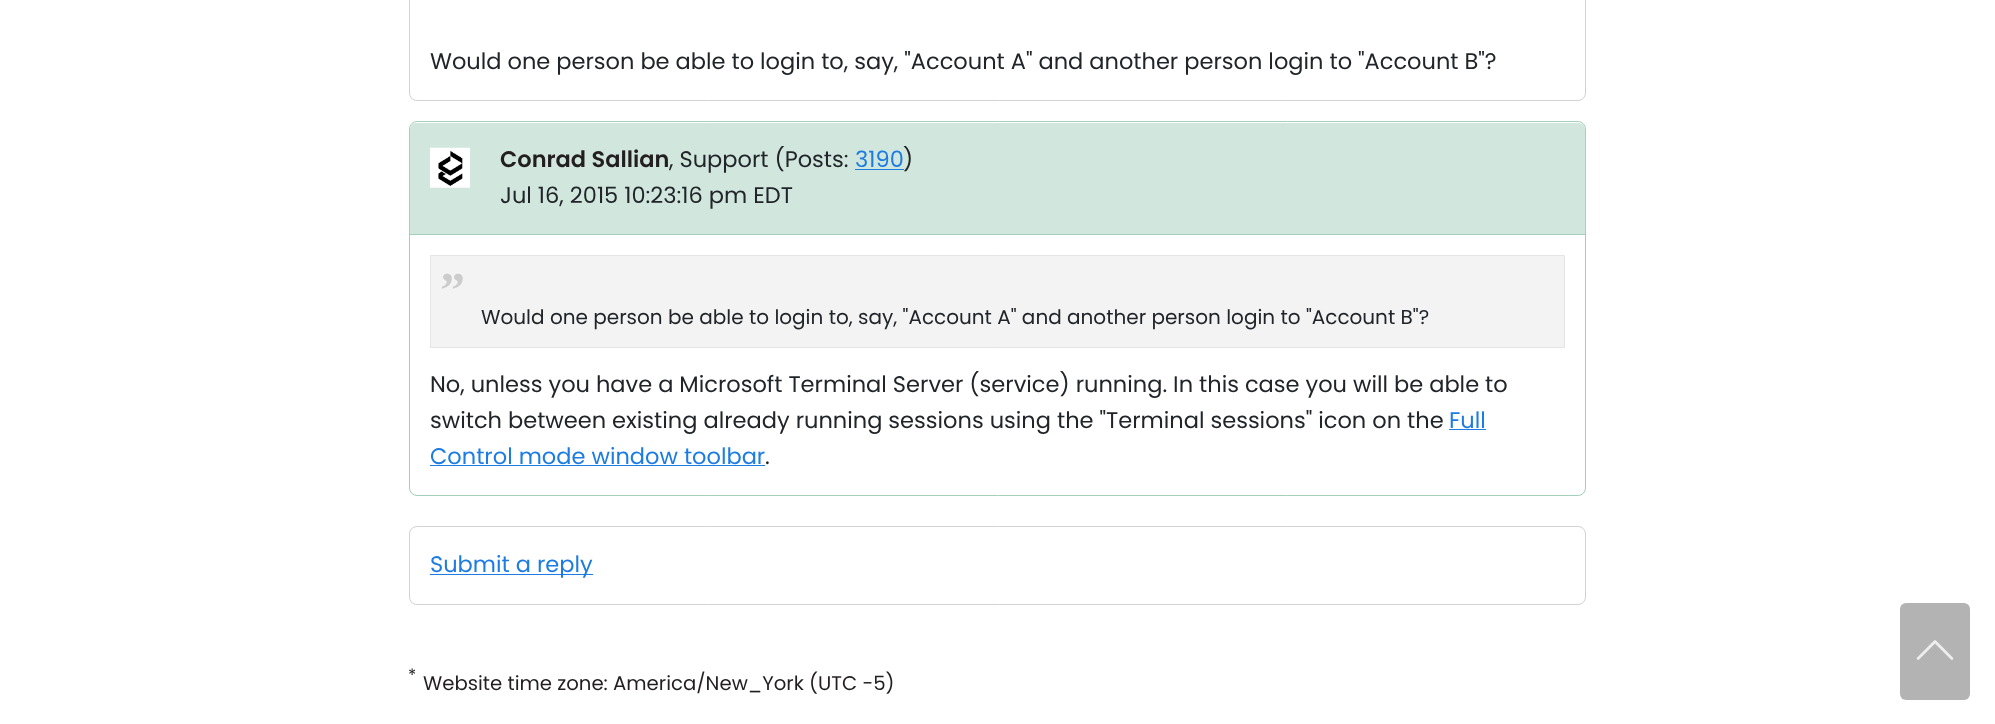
async function draw(canvas) {
  canvas.width = 1995
  canvas.height = 724
  const ctx = canvas.getContext('2d')
  ctx.miterLimit = 4
  ctx.fontKerning = 'normal'
  async function loadImage(src) {
    const img = new Image()
    img.src = src
    await img.decode()
    return img
  }

  ctx.fillStyle = '#fff'
  ctx.fillRect(0, 0, 1995, 724)
  ctx.beginPath()
  ctx.roundRect(409.5, -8.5, 1176, 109, 7.5)
  ctx.strokeStyle = '#d2d2d2'
  ctx.stroke()
  ctx.font = '22.5px Poppins'
  ctx.fillStyle = '#212529'
  ctx.fillText('Would one person be able to login to, say, "Account A" and another person login to "Account B"?', 430, 69)
  ctx.beginPath()
  ctx.roundRect(409.5, 121.5, 1176, 374, 7.5)
  ctx.strokeStyle = '#a3cfbb'
  ctx.stroke()
  ctx.fillStyle = '#d1e7dd'
  ctx.beginPath()
  ctx.roundRect(410, 123, 1175, 112, [6, 6, 0, 0])
  ctx.fill()
  ctx.fillStyle = '#a3cfbb'
  ctx.fillRect(410, 234, 1175, 1)
  ctx.drawImage(await loadImage('image0.png'), 430, 147, 40, 41)
  ctx.font = '600 22.5px Poppins'
  ctx.fillStyle = '#231f20'
  ctx.fillText('Conrad Sallian', 500, 167)
  ctx.font = '22.5px Poppins'
  ctx.fillStyle = '#212529'
  ctx.fillText(', Support (Posts:', 669, 167)
  ctx.fillStyle = '#1c7ce2'
  ctx.fillText('3190', 855, 167)
  ctx.fillRect(855, 169, 49, 1)
  ctx.fillStyle = '#212529'
  ctx.fillText(')', 903, 167)
  ctx.fillText('Jul 16, 2015 10:23:16 pm EDT', 500, 203)
  ctx.fillStyle = '#f3f3f3'
  ctx.beginPath()
  ctx.rect(430.5, 255.5, 1134, 92)
  ctx.fill()
  ctx.strokeStyle = '#e5e5e5'
  ctx.stroke()
  ctx.font = 'bold 50px Liberation Serif'
  ctx.fillStyle = '#ccc'
  ctx.fillText('”', 440, 307)
  ctx.font = '20px Poppins'
  ctx.fillStyle = '#212529'
  ctx.fillText('Would one person be able to login to, say, "Account A" and another person login to "Account B"?', 481, 324)
  ctx.font = '22.5px Poppins'
  ctx.fillText('No, unless you have a Microsoft Terminal Server (service) running. In this case you will be able to', 430, 392)
  ctx.fillText('switch between existing already running sessions using the "Terminal sessions" icon on the', 430, 428)
  ctx.fillStyle = '#1c7ce2'
  ctx.fillText('Full', 1449, 428)
  ctx.fillRect(1449, 429, 37, 1)
  ctx.fillText('Control mode window toolbar', 430, 464)
  ctx.fillRect(430, 465, 335, 1)
  ctx.fillStyle = '#212529'
  ctx.fillText('.', 765, 464)
  ctx.beginPath()
  ctx.roundRect(409.5, 526.5, 1176, 78, 7.5)
  ctx.strokeStyle = '#d2d2d2'
  ctx.stroke()
  ctx.fillStyle = '#1c7ce2'
  ctx.fillRect(430, 574, 163, 1)
  ctx.fillText('Submit a reply', 430, 572)
  ctx.font = '17px Poppins'
  ctx.fillStyle = '#231f20'
  ctx.fillText('*', 408, 681)
  ctx.font = '19.7px Poppins'
  ctx.fillText('Website time zone: America/New_York (UTC -5)', 423, 690)
  ctx.fillStyle = '#b3b3b3'
  ctx.beginPath()
  ctx.roundRect(1900, 603, 70, 97, 6)
  ctx.fill()
  ctx.drawImage(await loadImage('image1.png'), 1916, 640, 38, 20)
}

draw(document.querySelector('canvas'))
